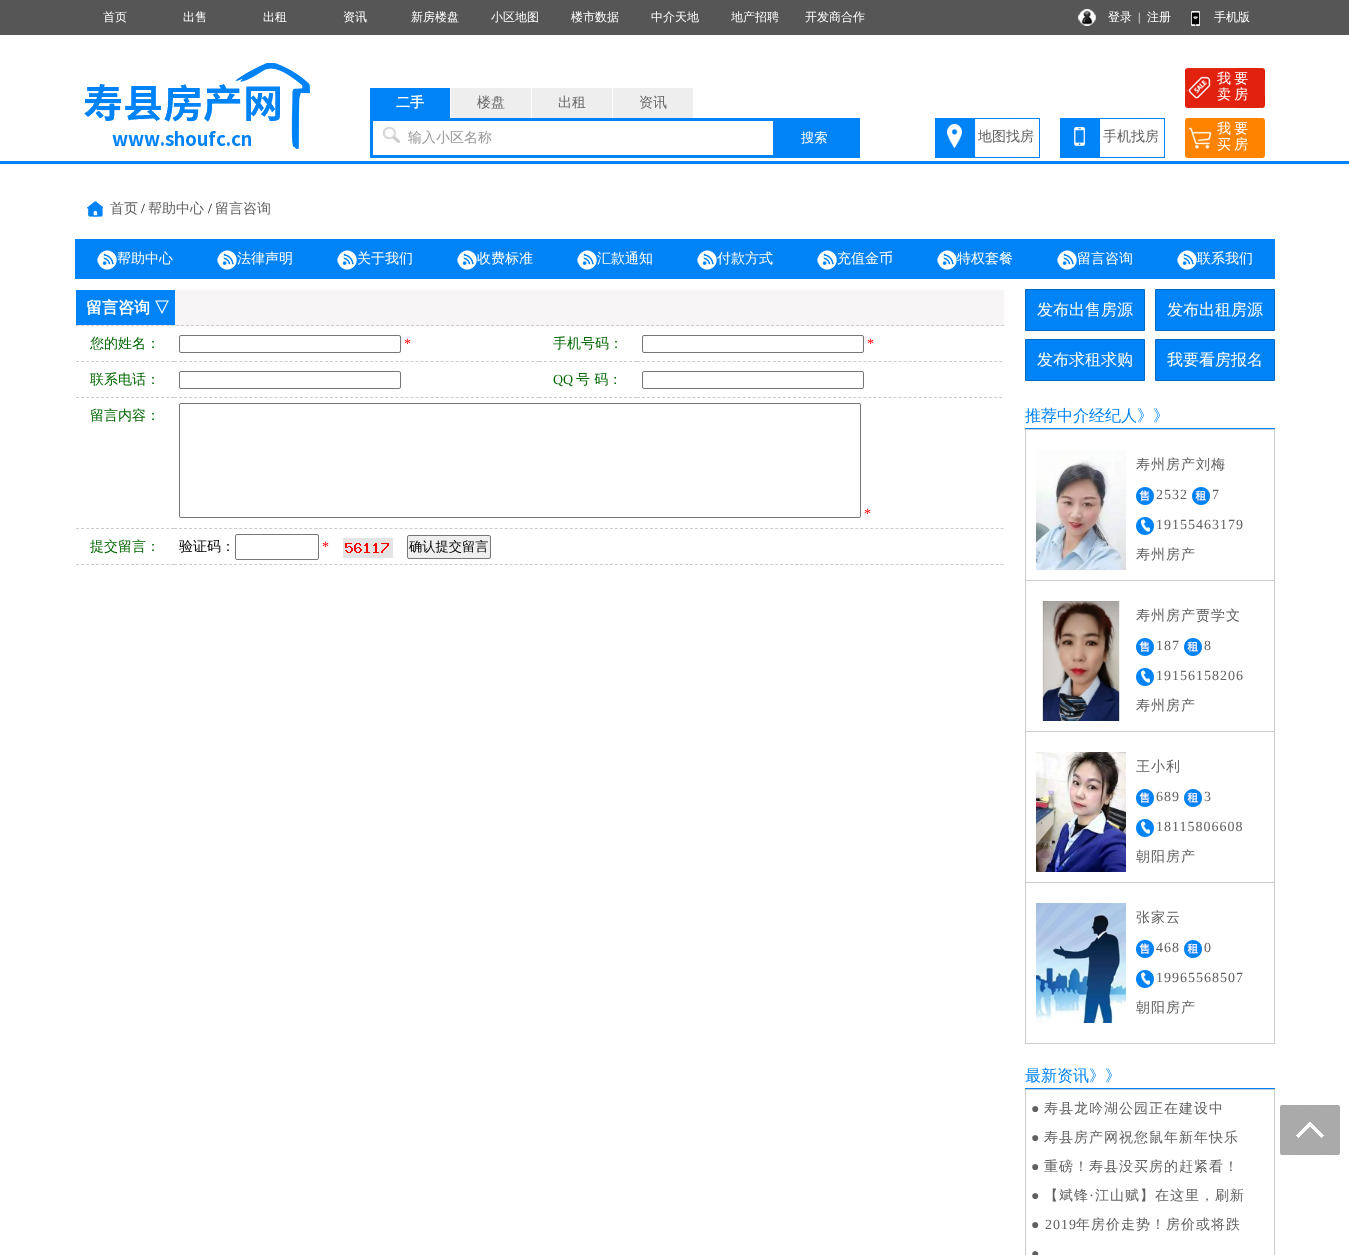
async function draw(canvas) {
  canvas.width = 1349
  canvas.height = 1255
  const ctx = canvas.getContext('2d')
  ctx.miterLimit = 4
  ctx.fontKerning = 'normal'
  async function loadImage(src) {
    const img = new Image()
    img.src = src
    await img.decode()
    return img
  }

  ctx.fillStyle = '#fff'
  ctx.fillRect(0, 0, 1349, 1255)
  ctx.fillStyle = '#565656'
  ctx.fillRect(0, 0, 1349, 35)
  ctx.font = '500 12px WenQuanYi Zen Hei'
  ctx.fillStyle = '#fff'
  ctx.fillText('首页', 103, 21)
  ctx.fillText('出售', 183, 21)
  ctx.fillText('出租', 263, 21)
  ctx.fillText('资讯', 343, 21)
  ctx.fillText('新房楼盘', 411, 21)
  ctx.fillText('小区地图', 491, 21)
  ctx.fillText('楼市数据', 571, 21)
  ctx.fillText('中介天地', 651, 21)
  ctx.fillText('地产招聘', 731, 21)
  ctx.fillText('开发商合作', 805, 21)
  ctx.drawImage(await loadImage('image0.png'), 1078, 9, 122, 17)
  ctx.fillText('登录', 1108, 21)
  ctx.font = '12px Liberation Serif'
  ctx.fillText('|', 1138, 21)
  ctx.font = '500 12px WenQuanYi Zen Hei'
  ctx.fillText('注册', 1147, 21)
  ctx.fillText('手机版', 1214, 21)
  ctx.drawImage(await loadImage('image1.png'), 84, 63, 226, 86)
  ctx.fillStyle = '#0083f6'
  ctx.fillRect(370, 88, 80, 30)
  ctx.font = 'bold 14px WenQuanYi Zen Hei'
  ctx.fillStyle = '#fff'
  ctx.fillText('二手', 396, 107)
  ctx.fillStyle = '#eee'
  ctx.fillRect(451, 88, 80, 30)
  ctx.font = '500 14px WenQuanYi Zen Hei'
  ctx.fillStyle = '#666'
  ctx.fillText('楼盘', 477, 107)
  ctx.fillStyle = '#eee'
  ctx.fillRect(532, 88, 80, 30)
  ctx.fillStyle = '#666'
  ctx.fillText('出租', 558, 107)
  ctx.fillStyle = '#eee'
  ctx.fillRect(613, 88, 80, 30)
  ctx.fillStyle = '#666'
  ctx.fillText('资讯', 639, 107)
  ctx.fillStyle = '#0083f6'
  ctx.fillRect(370, 118, 490, 40)
  ctx.fillStyle = '#fff'
  ctx.fillRect(373, 121, 400, 34)
  ctx.drawImage(await loadImage('image2.png'), 383, 127, 17, 16)
  ctx.fillStyle = '#999'
  ctx.fillText('输入小区名称', 408, 142)
  ctx.font = '500 13.25px WenQuanYi Zen Hei'
  ctx.fillStyle = '#fff'
  ctx.fillText('搜索', 801, 142)
  ctx.drawImage(await loadImage('image3.png'), 1185, 68, 80, 40)
  ctx.wordSpacing = '-1px'
  ctx.font = '500 14px WenQuanYi Zen Hei'
  ctx.fillText('我 要', 1217, 83)
  ctx.fillText('卖 房', 1217, 99)
  ctx.drawImage(await loadImage('image4.png'), 935, 118, 105, 40)
  ctx.wordSpacing = '0px'
  ctx.fillStyle = '#606060'
  ctx.fillText('地图找房', 978, 141)
  ctx.drawImage(await loadImage('image5.png'), 1060, 118, 105, 40)
  ctx.fillText('手机找房', 1103, 141)
  ctx.drawImage(await loadImage('image6.png'), 1185, 118, 80, 40)
  ctx.wordSpacing = '-1px'
  ctx.fillStyle = '#fff'
  ctx.fillText('我 要', 1217, 133)
  ctx.fillText('买 房', 1217, 149)
  ctx.fillStyle = '#0083f6'
  ctx.fillRect(0, 161, 1349, 3)
  ctx.drawImage(await loadImage('image7.png'), 87, 201, 16, 16)
  ctx.wordSpacing = '0px'
  ctx.fillStyle = '#606060'
  ctx.fillText('首页', 110, 213)
  ctx.font = '14px Liberation Serif'
  ctx.fillStyle = '#000'
  ctx.fillText('/', 141, 213)
  ctx.font = '500 14px WenQuanYi Zen Hei'
  ctx.fillStyle = '#606060'
  ctx.fillText('帮助中心', 148, 213)
  ctx.font = '14px Liberation Serif'
  ctx.fillStyle = '#000'
  ctx.fillText('/', 208, 213)
  ctx.font = '500 14px WenQuanYi Zen Hei'
  ctx.fillStyle = '#606060'
  ctx.fillText('留言咨询', 215, 213)
  ctx.fillStyle = '#0083f6'
  ctx.fillRect(75, 239, 1200, 40)
  ctx.drawImage(await loadImage('image8.png'), 97, 250, 20, 20)
  ctx.fillStyle = '#fff'
  ctx.fillText('帮助中心', 117, 263)
  ctx.drawImage(await loadImage('image8.png'), 217, 250, 20, 20)
  ctx.fillText('法律声明', 237, 263)
  ctx.drawImage(await loadImage('image8.png'), 337, 250, 20, 20)
  ctx.fillText('关于我们', 357, 263)
  ctx.drawImage(await loadImage('image8.png'), 457, 250, 20, 20)
  ctx.fillText('收费标准', 477, 263)
  ctx.drawImage(await loadImage('image8.png'), 577, 250, 20, 20)
  ctx.fillText('汇款通知', 597, 263)
  ctx.drawImage(await loadImage('image8.png'), 697, 250, 20, 20)
  ctx.fillText('付款方式', 717, 263)
  ctx.drawImage(await loadImage('image8.png'), 817, 250, 20, 20)
  ctx.fillText('充值金币', 837, 263)
  ctx.drawImage(await loadImage('image8.png'), 937, 250, 20, 20)
  ctx.fillText('特权套餐', 957, 263)
  ctx.drawImage(await loadImage('image8.png'), 1057, 250, 20, 20)
  ctx.fillText('留言咨询', 1077, 263)
  ctx.drawImage(await loadImage('image8.png'), 1177, 250, 20, 20)
  ctx.fillText('联系我们', 1197, 263)
  ctx.fillStyle = '#f7f5f5'
  ctx.fillRect(79, 290, 925, 36)
  ctx.fillStyle = '#0083f6'
  ctx.fillRect(76, 290, 99, 35)
  ctx.beginPath()
  ctx.moveTo(76, 325.5)
  ctx.lineTo(1004, 325.5)
  ctx.strokeStyle = '#ccc'
  ctx.setLineDash([3, 2])
  ctx.stroke()
  ctx.wordSpacing = '-1px'
  ctx.font = 'bold 16px WenQuanYi Zen Hei'
  ctx.fillStyle = '#fff'
  ctx.fillText('留言咨询 ▽', 86, 313)
  ctx.beginPath()
  ctx.moveTo(76, 361.5)
  ctx.lineTo(174, 361.5)
  ctx.stroke()
  ctx.wordSpacing = '0px'
  ctx.font = '500 14px WenQuanYi Zen Hei'
  ctx.fillStyle = '#060'
  ctx.fillText('您的姓名：', 90, 348)
  ctx.beginPath()
  ctx.moveTo(174, 361.5)
  ctx.lineTo(539, 361.5)
  ctx.setLineDash([3, 2.03])
  ctx.stroke()
  ctx.beginPath()
  ctx.roundRect(179.5, 335.5, 221, 17, 1.5)
  ctx.strokeStyle = '#767676'
  ctx.setLineDash([])
  ctx.stroke()
  ctx.font = '14px Liberation Serif'
  ctx.fillStyle = '#f00'
  ctx.fillText('*', 404, 348)
  ctx.beginPath()
  ctx.moveTo(539, 361.5)
  ctx.lineTo(637, 361.5)
  ctx.strokeStyle = '#ccc'
  ctx.setLineDash([3, 2])
  ctx.stroke()
  ctx.font = '500 14px WenQuanYi Zen Hei'
  ctx.fillStyle = '#060'
  ctx.fillText('手机号码：', 553, 348)
  ctx.beginPath()
  ctx.moveTo(637, 361.5)
  ctx.lineTo(1002, 361.5)
  ctx.setLineDash([3, 2.03])
  ctx.stroke()
  ctx.beginPath()
  ctx.roundRect(642.5, 335.5, 221, 17, 1.5)
  ctx.strokeStyle = '#767676'
  ctx.setLineDash([])
  ctx.stroke()
  ctx.font = '14px Liberation Serif'
  ctx.fillStyle = '#f00'
  ctx.fillText('*', 867, 348)
  ctx.beginPath()
  ctx.moveTo(76, 397.5)
  ctx.lineTo(174, 397.5)
  ctx.strokeStyle = '#ccc'
  ctx.setLineDash([3, 2])
  ctx.stroke()
  ctx.font = '500 14px WenQuanYi Zen Hei'
  ctx.fillStyle = '#060'
  ctx.fillText('联系电话：', 90, 384)
  ctx.beginPath()
  ctx.moveTo(174, 397.5)
  ctx.lineTo(539, 397.5)
  ctx.setLineDash([3, 2.03])
  ctx.stroke()
  ctx.beginPath()
  ctx.roundRect(179.5, 371.5, 221, 17, 1.5)
  ctx.strokeStyle = '#767676'
  ctx.setLineDash([])
  ctx.stroke()
  ctx.beginPath()
  ctx.moveTo(539, 397.5)
  ctx.lineTo(637, 397.5)
  ctx.strokeStyle = '#ccc'
  ctx.setLineDash([3, 2])
  ctx.stroke()
  ctx.font = '14px Liberation Serif'
  ctx.fillText('QQ', 553, 384)
  ctx.font = '500 14px WenQuanYi Zen Hei'
  ctx.fillText('号 码：', 576, 384)
  ctx.beginPath()
  ctx.moveTo(637, 397.5)
  ctx.lineTo(1002, 397.5)
  ctx.setLineDash([3, 2.03])
  ctx.stroke()
  ctx.beginPath()
  ctx.roundRect(642.5, 371.5, 221, 17, 1.5)
  ctx.strokeStyle = '#767676'
  ctx.setLineDash([])
  ctx.stroke()
  ctx.beginPath()
  ctx.moveTo(76, 528.5)
  ctx.lineTo(174, 528.5)
  ctx.strokeStyle = '#ccc'
  ctx.setLineDash([3, 2])
  ctx.stroke()
  ctx.fillText('留言内容：', 90, 420)
  ctx.beginPath()
  ctx.moveTo(174, 528.5)
  ctx.lineTo(1004, 528.5)
  ctx.setLineDash([3, 2.01])
  ctx.stroke()
  ctx.beginPath()
  ctx.roundRect(179.5, 403.5, 681, 114, 1.5)
  ctx.strokeStyle = '#767676'
  ctx.setLineDash([])
  ctx.stroke()
  ctx.font = '14px Liberation Serif'
  ctx.fillStyle = '#f00'
  ctx.fillText('*', 864, 518)
  ctx.beginPath()
  ctx.moveTo(76, 564.5)
  ctx.lineTo(174, 564.5)
  ctx.strokeStyle = '#ccc'
  ctx.setLineDash([3, 2])
  ctx.stroke()
  ctx.font = '500 14px WenQuanYi Zen Hei'
  ctx.fillStyle = '#060'
  ctx.fillText('提交留言：', 90, 551)
  ctx.beginPath()
  ctx.moveTo(174, 564.5)
  ctx.lineTo(1004, 564.5)
  ctx.setLineDash([3, 2.01])
  ctx.stroke()
  ctx.fillStyle = '#000'
  ctx.fillText('验证码：', 179, 551)
  ctx.beginPath()
  ctx.roundRect(235.5, 534.5, 83, 25, 1.5)
  ctx.strokeStyle = '#767676'
  ctx.setLineDash([])
  ctx.stroke()
  ctx.font = '14px Liberation Serif'
  ctx.fillStyle = '#f00'
  ctx.fillText('*', 322, 551)
  ctx.drawImage(await loadImage('image9.png'), 343, 538, 50, 20)
  ctx.fillStyle = '#efefef'
  ctx.beginPath()
  ctx.roundRect(407.5, 535.5, 83, 23, 1.5)
  ctx.fill()
  ctx.stroke()
  ctx.font = '500 13.25px WenQuanYi Zen Hei'
  ctx.fillStyle = '#000'
  ctx.fillText('确认提交留言', 409, 551)
  ctx.fillStyle = '#0083f6'
  ctx.beginPath()
  ctx.rect(1025.5, 289.5, 119, 41)
  ctx.fill()
  ctx.strokeStyle = '#0067c3'
  ctx.stroke()
  ctx.font = '500 16px WenQuanYi Zen Hei'
  ctx.fillStyle = '#fff'
  ctx.fillText('发布出售房源', 1037, 315)
  ctx.fillStyle = '#0083f6'
  ctx.beginPath()
  ctx.rect(1155.5, 289.5, 119, 41)
  ctx.fill()
  ctx.stroke()
  ctx.fillStyle = '#fff'
  ctx.fillText('发布出租房源', 1167, 315)
  ctx.fillStyle = '#0083f6'
  ctx.beginPath()
  ctx.rect(1025.5, 339.5, 119, 41)
  ctx.fill()
  ctx.stroke()
  ctx.fillStyle = '#fff'
  ctx.fillText('发布求租求购', 1037, 365)
  ctx.fillStyle = '#0083f6'
  ctx.beginPath()
  ctx.rect(1155.5, 339.5, 119, 41)
  ctx.fill()
  ctx.stroke()
  ctx.fillStyle = '#fff'
  ctx.fillText('我要看房报名', 1167, 365)
  ctx.fillStyle = '#0083f6'
  ctx.fillRect(1025, 428, 250, 1)
  ctx.fillText('推荐中介经纪人》》', 1025, 421)
  ctx.strokeStyle = '#ccc'
  ctx.strokeRect(1025.5, 429.5, 249, 614)
  ctx.drawImage(await loadImage('image10.png'), 1036, 450, 90, 120)
  ctx.letterSpacing = '1px'
  ctx.font = '500 14px WenQuanYi Zen Hei'
  ctx.fillStyle = '#606060'
  ctx.fillText('寿州房产刘梅', 1136, 469)
  ctx.drawImage(await loadImage('image11.png'), 1136, 487, 18, 18)
  ctx.font = '14px Liberation Serif'
  ctx.fillText('2532', 1156, 499)
  ctx.drawImage(await loadImage('image12.png'), 1192, 487, 18, 18)
  ctx.fillText('7', 1212, 499)
  ctx.drawImage(await loadImage('image13.png'), 1136, 517, 18, 18)
  ctx.fillText('19155463179', 1156, 529)
  ctx.font = '500 14px WenQuanYi Zen Hei'
  ctx.fillText('寿州房产', 1136, 559)
  ctx.fillStyle = '#ccc'
  ctx.fillRect(1026, 580, 248, 1)
  ctx.drawImage(await loadImage('image14.png'), 1042, 601, 78, 120)
  ctx.fillStyle = '#606060'
  ctx.fillText('寿州房产贾学文', 1136, 620)
  ctx.drawImage(await loadImage('image11.png'), 1136, 638, 18, 18)
  ctx.font = '14px Liberation Serif'
  ctx.fillText('187', 1156, 650)
  ctx.drawImage(await loadImage('image12.png'), 1184, 638, 18, 18)
  ctx.fillText('8', 1204, 650)
  ctx.drawImage(await loadImage('image13.png'), 1136, 668, 18, 18)
  ctx.fillText('19156158206', 1156, 680)
  ctx.font = '500 14px WenQuanYi Zen Hei'
  ctx.fillText('寿州房产', 1136, 710)
  ctx.fillStyle = '#ccc'
  ctx.fillRect(1026, 731, 248, 1)
  ctx.drawImage(await loadImage('image15.png'), 1036, 752, 90, 120)
  ctx.fillStyle = '#606060'
  ctx.fillText('王小利', 1136, 771)
  ctx.drawImage(await loadImage('image11.png'), 1136, 789, 18, 18)
  ctx.font = '14px Liberation Serif'
  ctx.fillText('689', 1156, 801)
  ctx.drawImage(await loadImage('image12.png'), 1184, 789, 18, 18)
  ctx.fillText('3', 1204, 801)
  ctx.drawImage(await loadImage('image13.png'), 1136, 819, 18, 18)
  ctx.fillText('18115806608', 1156, 831)
  ctx.font = '500 14px WenQuanYi Zen Hei'
  ctx.fillText('朝阳房产', 1136, 861)
  ctx.fillStyle = '#ccc'
  ctx.fillRect(1026, 882, 248, 1)
  ctx.drawImage(await loadImage('image16.png'), 1036, 903, 90, 120)
  ctx.fillStyle = '#606060'
  ctx.fillText('张家云', 1136, 922)
  ctx.drawImage(await loadImage('image11.png'), 1136, 940, 18, 18)
  ctx.font = '14px Liberation Serif'
  ctx.fillText('468', 1156, 952)
  ctx.drawImage(await loadImage('image12.png'), 1184, 940, 18, 18)
  ctx.fillText('0', 1204, 952)
  ctx.drawImage(await loadImage('image13.png'), 1136, 970, 18, 18)
  ctx.fillText('19965568507', 1156, 982)
  ctx.font = '500 14px WenQuanYi Zen Hei'
  ctx.fillText('朝阳房产', 1136, 1012)
  ctx.fillStyle = '#0083f6'
  ctx.fillRect(1025, 1088, 250, 1)
  ctx.letterSpacing = '0px'
  ctx.font = '500 16px WenQuanYi Zen Hei'
  ctx.fillText('最新资讯》》', 1025, 1081)
  ctx.strokeRect(1025.5, 1089.5, 249, 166)
  ctx.letterSpacing = '1px'
  ctx.font = '14px Liberation Serif'
  ctx.fillStyle = '#606060'
  ctx.fillText('●', 1031, 1113)
  ctx.font = '500 14px WenQuanYi Zen Hei'
  ctx.fillText('寿县龙吟湖公园正在建设中', 1044, 1113)
  ctx.font = '14px Liberation Serif'
  ctx.fillText('●', 1031, 1142)
  ctx.font = '500 14px WenQuanYi Zen Hei'
  ctx.fillText('寿县房产网祝您鼠年新年快乐', 1044, 1142)
  ctx.font = '14px Liberation Serif'
  ctx.fillText('●', 1031, 1171)
  ctx.font = '500 14px WenQuanYi Zen Hei'
  ctx.fillText('重磅！寿县没买房的赶紧看！', 1044, 1171)
  ctx.font = '14px Liberation Serif'
  ctx.fillText('●', 1031, 1200)
  ctx.font = '500 14px WenQuanYi Zen Hei'
  ctx.fillText('【斌锋', 1044, 1200)
  ctx.font = '14px Liberation Serif'
  ctx.fillText('·', 1089, 1200)
  ctx.font = '500 14px WenQuanYi Zen Hei'
  ctx.fillText('江山赋】在这里，刷新', 1095, 1200)
  ctx.font = '14px Liberation Serif'
  ctx.fillText('● 2019', 1031, 1229)
  ctx.font = '500 14px WenQuanYi Zen Hei'
  ctx.fillText('年房价走势！房价或将跌', 1076, 1229)
  ctx.font = '14px Liberation Serif'
  ctx.fillText('●', 1031, 1258)
  ctx.drawImage(await loadImage('image17.png'), 1280, 1105, 60, 50)
}

draw(document.querySelector('canvas'))
